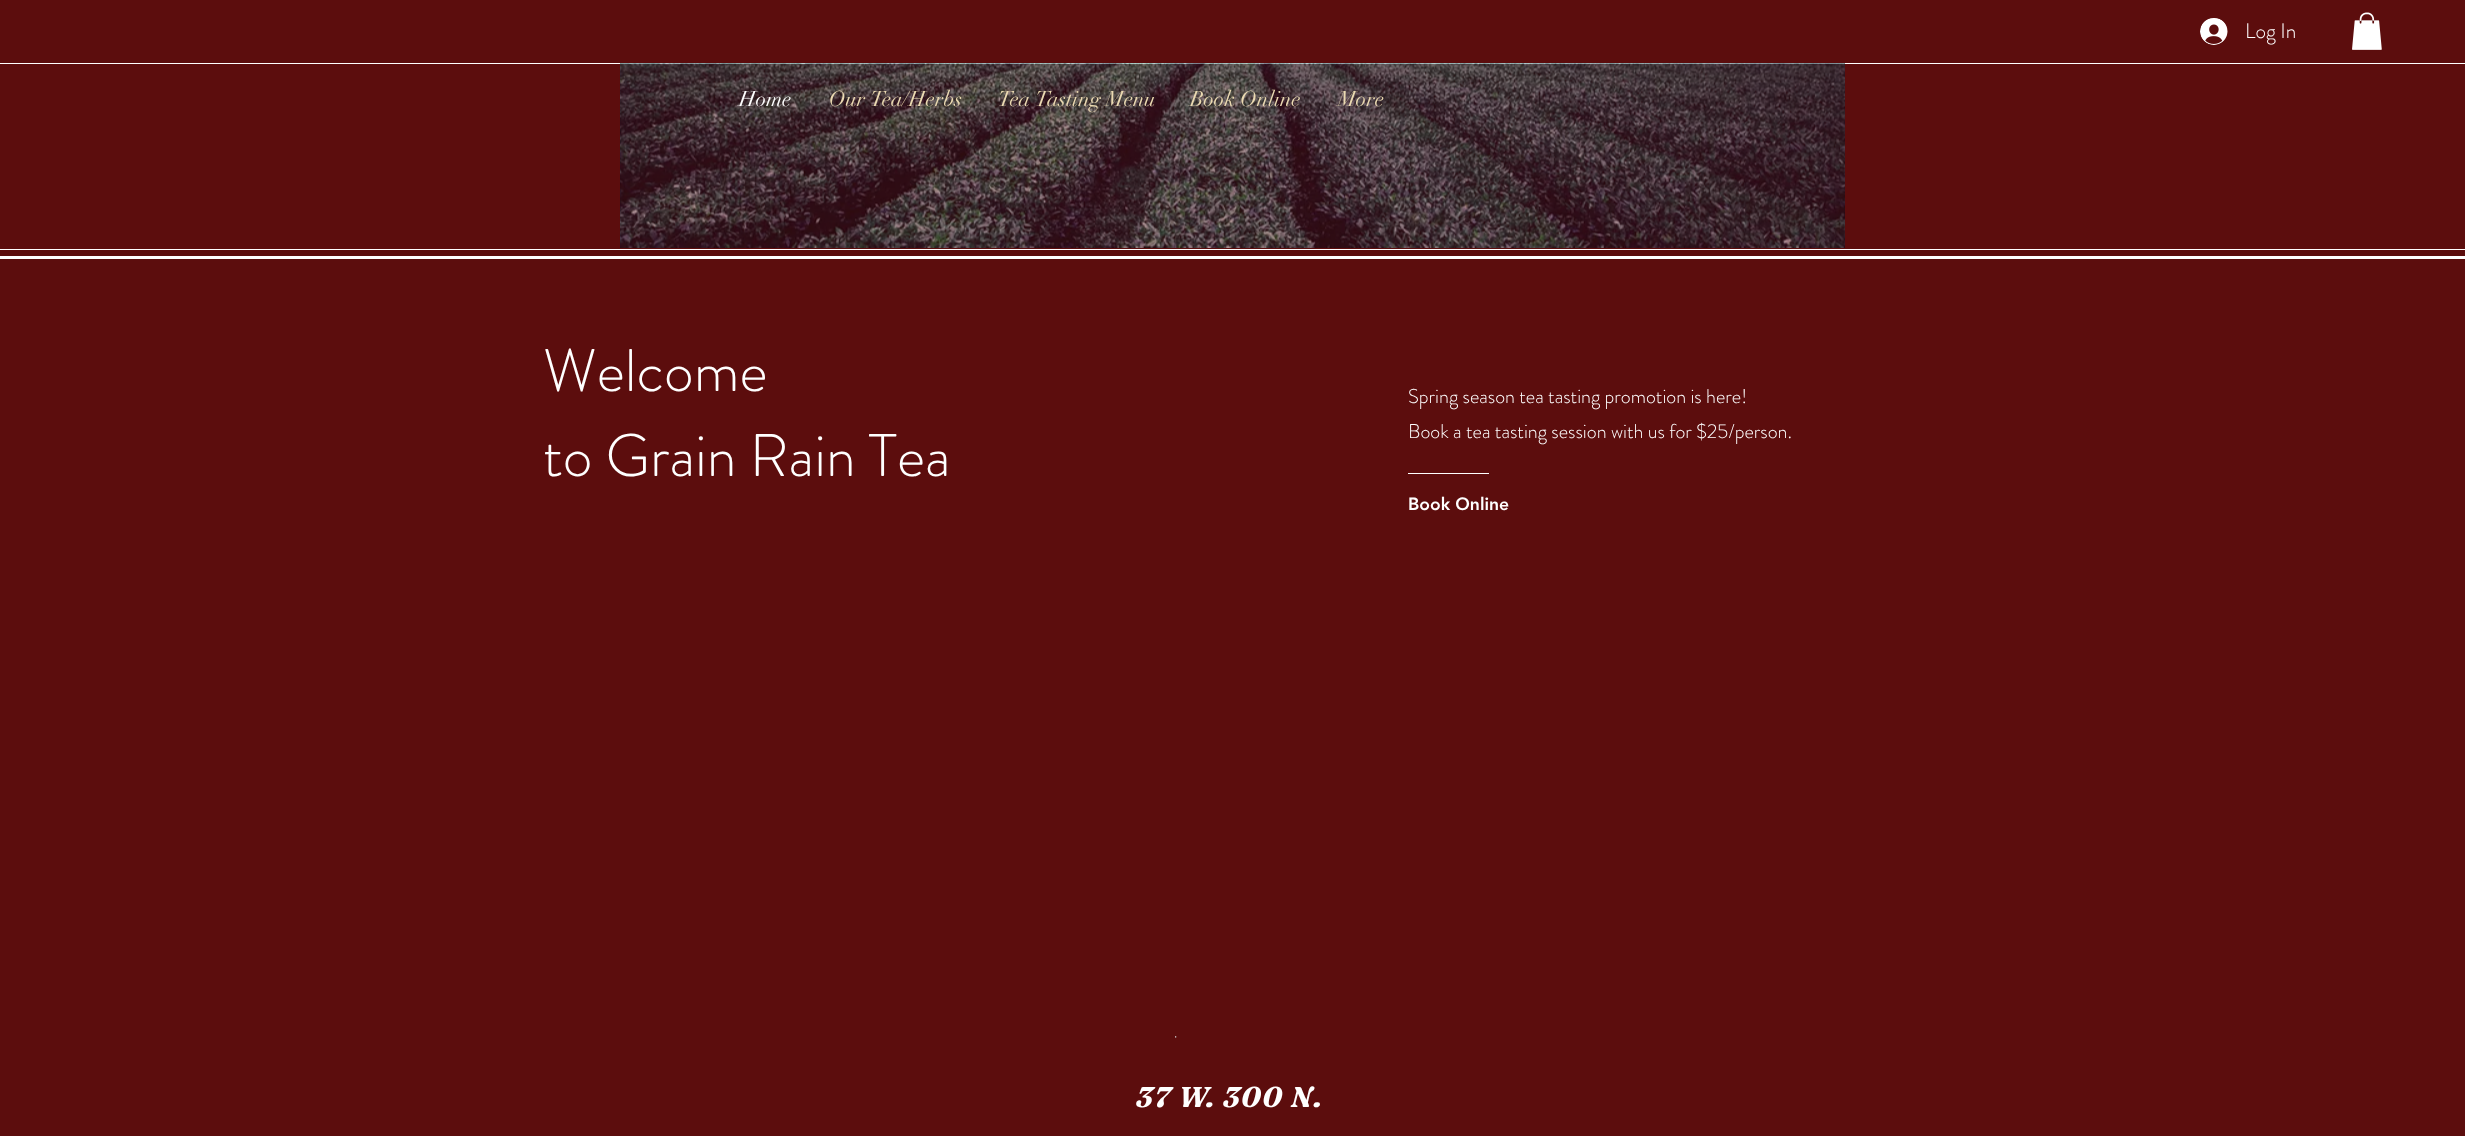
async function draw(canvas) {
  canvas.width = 2465
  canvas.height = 1136
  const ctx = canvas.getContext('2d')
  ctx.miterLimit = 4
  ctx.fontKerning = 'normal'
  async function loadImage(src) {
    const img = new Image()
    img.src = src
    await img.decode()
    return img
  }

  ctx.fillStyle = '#5c0d0d'
  ctx.fillRect(0, 0, 2465, 1136)
  ctx.drawImage(await loadImage('image0.png'), 2200, 18, 28, 27)
  ctx.font = '300 21.25px "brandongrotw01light"'
  ctx.fillStyle = '#fff'
  ctx.fillText('Log In', 2245, 38)
  ctx.drawImage(await loadImage('image1.png'), 2352, 12, 30, 38)
  ctx.fillRect(0, 63, 2465, 1)
  ctx.drawImage(await loadImage('image2.png'), 620, 63, 1225, 185)
  ctx.font = '21.25px didot'
  ctx.fillText('Home', 739, 106)
  ctx.fillStyle = '#ebdab2'
  ctx.fillText('Our Tea/Herbs', 829, 106)
  ctx.fillText('Tea Tasting Menu', 998, 106)
  ctx.fillText('Book Online', 1190, 106)
  ctx.fillText('More', 1338, 106)
  ctx.fillStyle = '#fff'
  ctx.fillRect(0, 249, 2465, 1)
  ctx.fillRect(0, 256, 2465, 3)
  ctx.font = '300 60px "brandongrotw01light"'
  ctx.fillText('Welcome', 543, 391)
  ctx.fillText('to Grain Rain Tea', 543, 476)
  ctx.font = '300 20px "brandongrotw01light"'
  ctx.fillText('Spring season tea tasting promotion is here!', 1408, 403)
  ctx.fillText('Book a tea tasting session with us for $25/person.', 1408, 438)
  ctx.fillRect(1408, 473, 81, 1)
  ctx.font = '900 17.5px "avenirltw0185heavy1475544"'
  ctx.fillText('Book Online', 1408, 510)
  ctx.drawImage(await loadImage('image3.png'), 1175, 1036, 2, 2)
  ctx.letterSpacing = '1.5px'
  ctx.font = 'italic bold 28.75px Fraunces'
  ctx.fillText('37 W. 300 N.', 1136, 1107)
}

draw(document.querySelector('canvas'))
